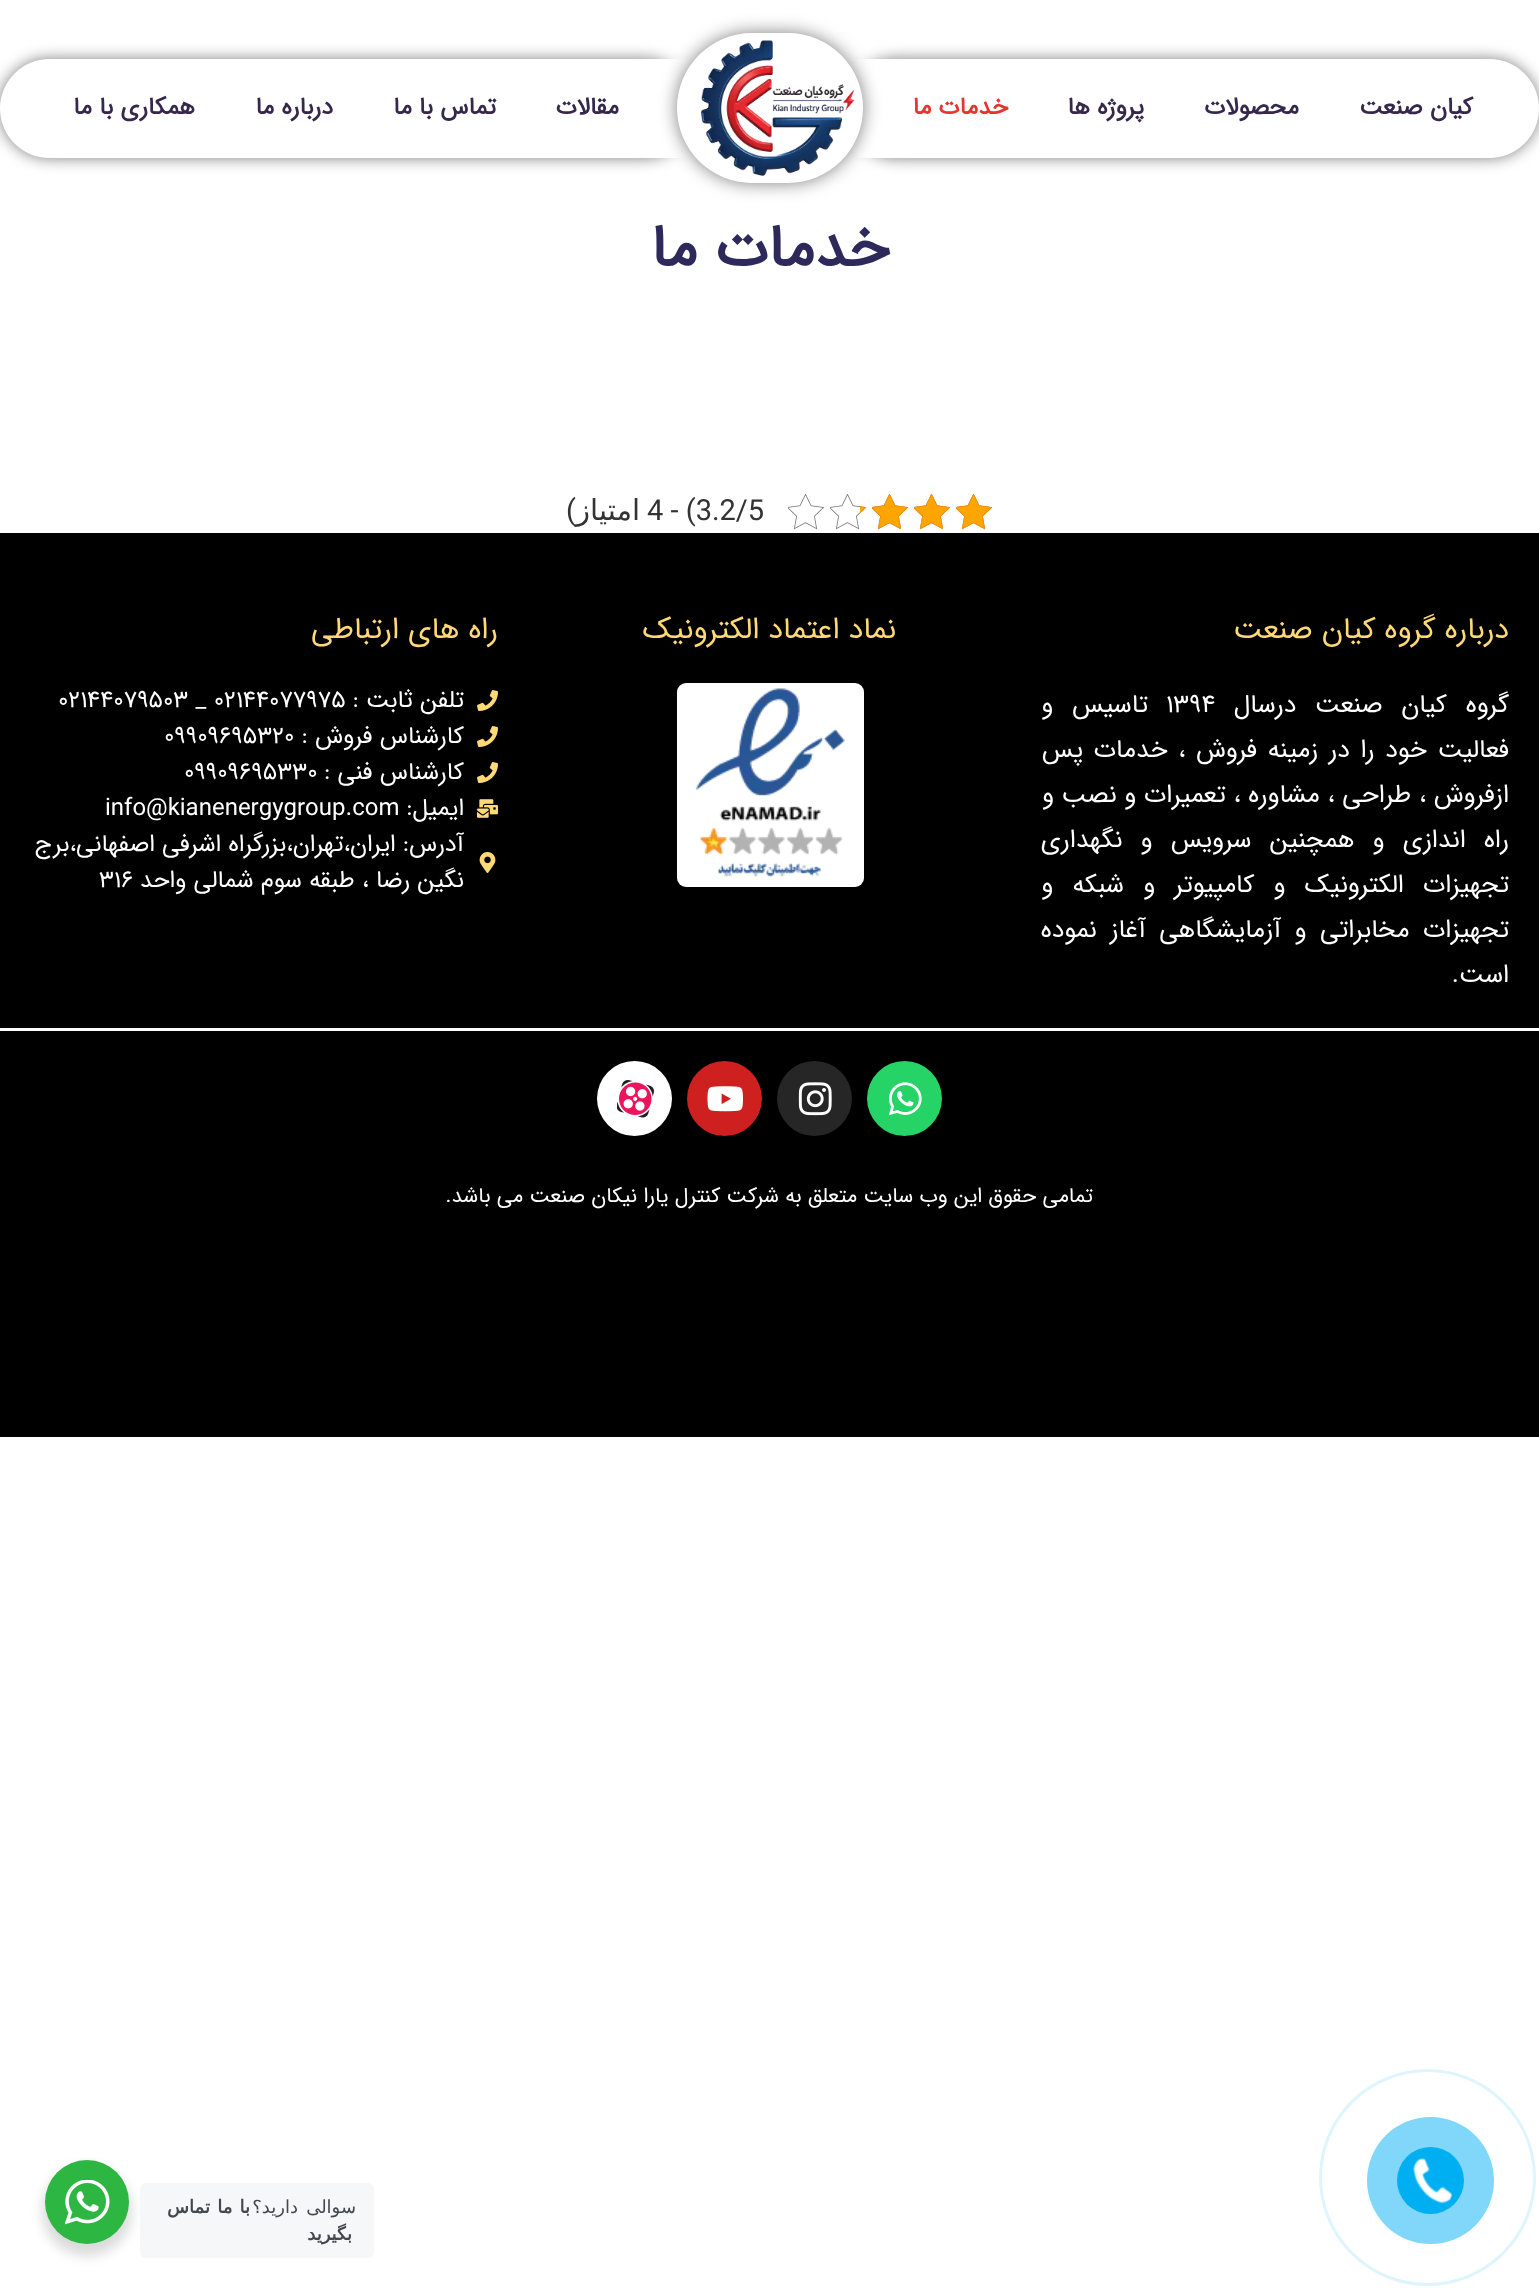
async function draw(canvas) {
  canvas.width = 1539
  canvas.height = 2288
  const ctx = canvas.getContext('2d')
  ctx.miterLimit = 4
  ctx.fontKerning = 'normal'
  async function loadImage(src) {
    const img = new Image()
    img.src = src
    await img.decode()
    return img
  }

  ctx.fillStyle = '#fff'
  ctx.fillRect(0, 0, 1539, 2288)
  ctx.fillStyle = '#00000080'
  ctx.filter = 'blur(7.5px)'
  ctx.beginPath()
  ctx.roundRect(846, 59, 693, 99, 49.5)
  ctx.fill()
  ctx.filter = 'none'
  ctx.fillStyle = '#fff'
  ctx.beginPath()
  ctx.roundRect(846, 59, 693, 99, [0, 49.5, 49.5, 0])
  ctx.fill()
  ctx.direction = 'rtl'
  ctx.font = 'bold 24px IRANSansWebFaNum'
  ctx.fillStyle = '#36274d'
  ctx.fillText('کیان صنعت', 1473, 114)
  ctx.fillText('محصولات', 1299, 114)
  ctx.fillText('پروژه ها', 1144, 114)
  ctx.fillStyle = '#e7342d'
  ctx.fillText('خدمات ما', 1008, 114)
  ctx.fillStyle = '#00000080'
  ctx.filter = 'blur(7.5px)'
  ctx.beginPath()
  ctx.roundRect(0, 59, 693, 99, 49.5)
  ctx.fill()
  ctx.filter = 'none'
  ctx.fillStyle = '#fff'
  ctx.beginPath()
  ctx.roundRect(0, 59, 693, 99, [49.5, 0, 0, 49.5])
  ctx.fill()
  ctx.fillStyle = '#00000080'
  ctx.filter = 'blur(9px)'
  ctx.beginPath()
  ctx.roundRect(677, 33, 186, 150, 75)
  ctx.fill()
  ctx.filter = 'none'
  ctx.fillStyle = '#fff'
  ctx.beginPath()
  ctx.roundRect(677, 33, 186, 150, 75)
  ctx.fill()
  ctx.drawImage(await loadImage('image0.png'), 701, 40, 154, 136)
  ctx.fillStyle = '#36274d'
  ctx.fillText('مقالات', 619, 114)
  ctx.fillText('تماس با ما', 496, 114)
  ctx.fillText('درباره ما', 333, 114)
  ctx.fillText('همکاری با ما', 195, 114)
  ctx.font = 'bold 60px IRANSansWebFaNum'
  ctx.fillStyle = '#2d295b'
  ctx.fillText('خدمات ما', 889, 266)
  ctx.drawImage(await loadImage('image1.png'), 956, 494, 36, 36)
  ctx.drawImage(await loadImage('image1.png'), 914, 494, 36, 36)
  ctx.drawImage(await loadImage('image1.png'), 872, 494, 36, 36)
  ctx.drawImage(await loadImage('image1.png'), 830, 494, 36, 36)
  ctx.drawImage(await loadImage('image1.png'), 788, 494, 36, 36)
  ctx.drawImage(await loadImage('image2.png'), 956, 494, 36, 36)
  ctx.drawImage(await loadImage('image2.png'), 914, 494, 36, 36)
  ctx.drawImage(await loadImage('image2.png'), 872, 494, 36, 36)
  ctx.drawImage(await loadImage('image3.png'), 860, 506, 6, 8)
  ctx.direction = 'ltr'
  ctx.font = '29px Roboto'
  ctx.fillStyle = '#333'
  ctx.fillText('4 - (3.2/5', 647, 520)
  ctx.direction = 'rtl'
  ctx.fillText(')', 576, 520)
  ctx.font = '29px DejaVu Sans'
  ctx.fillText('امتیاز', 640, 520)
  ctx.fillStyle = '#000'
  ctx.fillRect(0, 533, 1539, 904)
  ctx.fillStyle = '#fff'
  ctx.fillRect(0, 1028, 1539, 3)
  ctx.font = '30px IRANSansWebFaNum'
  ctx.fillStyle = '#ffd976'
  ctx.fillText('درباره گروه کیان صنعت', 1509, 638)
  ctx.wordSpacing = '11px'
  ctx.font = '25.5px IRANSansWebFaNum'
  ctx.fillStyle = '#fff'
  ctx.fillText('گروه کیان صنعت درسال', 1509, 712)
  ctx.wordSpacing = '0px'
  ctx.direction = 'ltr'
  ctx.fillText('1394', 1166, 712)
  ctx.wordSpacing = '11px'
  ctx.direction = 'rtl'
  ctx.fillText('تاسیس و', 1148, 712)
  ctx.wordSpacing = '3px'
  ctx.fillText('فعالیت خود را در زمینه فروش ، خدمات پس', 1509, 757)
  ctx.wordSpacing = '0px'
  ctx.fillText('ازفروش ، طراحی ، مشاوره ، تعمیرات و نصب و', 1509, 802)
  ctx.wordSpacing = '10.5px'
  ctx.fillText('راه اندازی و همچنین سرویس و نگهداری', 1509, 847)
  ctx.wordSpacing = '11.5px'
  ctx.fillText('تجهیزات الکترونیک و کامپیوتر و شبکه و', 1509, 892)
  ctx.wordSpacing = '5.75px'
  ctx.fillText('تجهیزات مخابراتی و آزمایشگاهی آغاز نموده', 1509, 937)
  ctx.wordSpacing = '0px'
  ctx.fillText('است.', 1509, 982)
  ctx.font = '30px IRANSansWebFaNum'
  ctx.fillStyle = '#ffd976'
  ctx.fillText('نماد اعتماد الکترونیک', 896, 638)
  ctx.fillStyle = '#fff'
  ctx.beginPath()
  ctx.roundRect(677, 683, 187, 204, 9)
  ctx.fill()
  ctx.drawImage(await loadImage('image4.png'), 695, 688, 150, 189)
  ctx.fillStyle = '#ffd976'
  ctx.fillText('راه های ارتباطی', 498, 638)
  ctx.drawImage(await loadImage('image5.png'), 477, 690, 21, 21)
  ctx.font = '24px IRANSansWebFaNum'
  ctx.fillStyle = '#fff'
  ctx.fillText('تلفن ثابت :', 464, 707)
  ctx.direction = 'ltr'
  ctx.fillText('02144079503 _ 02144077975', 58, 707)
  ctx.drawImage(await loadImage('image5.png'), 477, 726, 21, 21)
  ctx.direction = 'rtl'
  ctx.fillText('کارشناس فروش :', 464, 743)
  ctx.direction = 'ltr'
  ctx.fillText('09909695320', 164, 743)
  ctx.drawImage(await loadImage('image5.png'), 477, 762, 21, 21)
  ctx.direction = 'rtl'
  ctx.fillText('کارشناس فنی :', 464, 779)
  ctx.direction = 'ltr'
  ctx.fillText('09909695330', 184, 779)
  ctx.drawImage(await loadImage('image6.png'), 477, 799, 21, 19)
  ctx.direction = 'rtl'
  ctx.fillText('ایمیل:', 464, 815)
  ctx.direction = 'ltr'
  ctx.fillText('info@kianenergygroup.com', 105, 815)
  ctx.drawImage(await loadImage('image7.png'), 479, 852, 17, 21)
  ctx.direction = 'rtl'
  ctx.fillText('آدرس: ایران،تهران،بزرگراه اشرفی اصفهانی،برج', 464, 851)
  ctx.fillText('نگین رضا ، طبقه سوم شمالی واحد', 464, 887)
  ctx.direction = 'ltr'
  ctx.fillText('316', 99, 887)
  ctx.fillStyle = '#25d366'
  ctx.beginPath()
  ctx.arc(904.5, 1098.5, 37.5, 0, 2 * Math.PI)
  ctx.fill()
  ctx.drawImage(await loadImage('image8.png'), 888, 1082, 34, 34)
  ctx.fillStyle = '#262626'
  ctx.beginPath()
  ctx.arc(814.5, 1098.5, 37.5, 0, 2 * Math.PI)
  ctx.fill()
  ctx.drawImage(await loadImage('image9.png'), 798, 1082, 34, 34)
  ctx.fillStyle = '#cd201f'
  ctx.beginPath()
  ctx.arc(724.5, 1098.5, 37.5, 0, 2 * Math.PI)
  ctx.fill()
  ctx.drawImage(await loadImage('image10.png'), 707, 1086, 36, 26)
  ctx.fillStyle = '#fff'
  ctx.beginPath()
  ctx.arc(634.5, 1098.5, 37.5, 0, 2 * Math.PI)
  ctx.fill()
  ctx.drawImage(await loadImage('image11.png'), 617, 1080, 37, 38)
  ctx.direction = 'rtl'
  ctx.font = '21px IRANSansWebFaNum'
  ctx.fillText('تمامی حقوق این وب سایت متعلق به شرکت کنترل یارا نیکان صنعت می باشد.', 1093, 1202)
  ctx.beginPath()
  ctx.arc(1427.5, 2177.5, 107, 0, 2 * Math.PI)
  ctx.strokeStyle = '#dff5fe'
  ctx.lineWidth = 3
  ctx.stroke()
  ctx.fillStyle = '#80d7f9'
  ctx.beginPath()
  ctx.arc(1430.5, 2180.5, 63.5, 0, 2 * Math.PI)
  ctx.fill()
  ctx.fillStyle = '#00aff2'
  ctx.beginPath()
  ctx.arc(1430.5, 2180.5, 33.5, 0, 2 * Math.PI)
  ctx.fill()
  ctx.drawImage(await loadImage('image12.png'), 1413, 2157, 40, 47)
  ctx.fillStyle = '#00000024'
  ctx.filter = 'blur(6px)'
  ctx.beginPath()
  ctx.roundRect(42, 2166, 90, 90, 45)
  ctx.fill()
  ctx.filter = 'none'
  ctx.fillStyle = '#f5f7f9'
  ctx.beginPath()
  ctx.roundRect(140, 2183, 234, 75, 6)
  ctx.fill()
  ctx.letterSpacing = '-0.5px'
  ctx.wordSpacing = '3px'
  ctx.font = '18px DejaVu Sans'
  ctx.fillStyle = '#43474e'
  ctx.fillText('سوالی دارید؟', 356, 2213)
  ctx.wordSpacing = '2px'
  ctx.font = 'bold 18px DejaVu Sans'
  ctx.fillText('با ما تماس', 250, 2213)
  ctx.wordSpacing = '0px'
  ctx.fillText('بگیرید', 352, 2240)
  ctx.fillStyle = '#2db742'
  ctx.beginPath()
  ctx.arc(87, 2202, 42, 0, 2 * Math.PI)
  ctx.fill()
  ctx.drawImage(await loadImage('image13.png'), 65, 2180, 45, 45)
}

draw(document.querySelector('canvas'))
